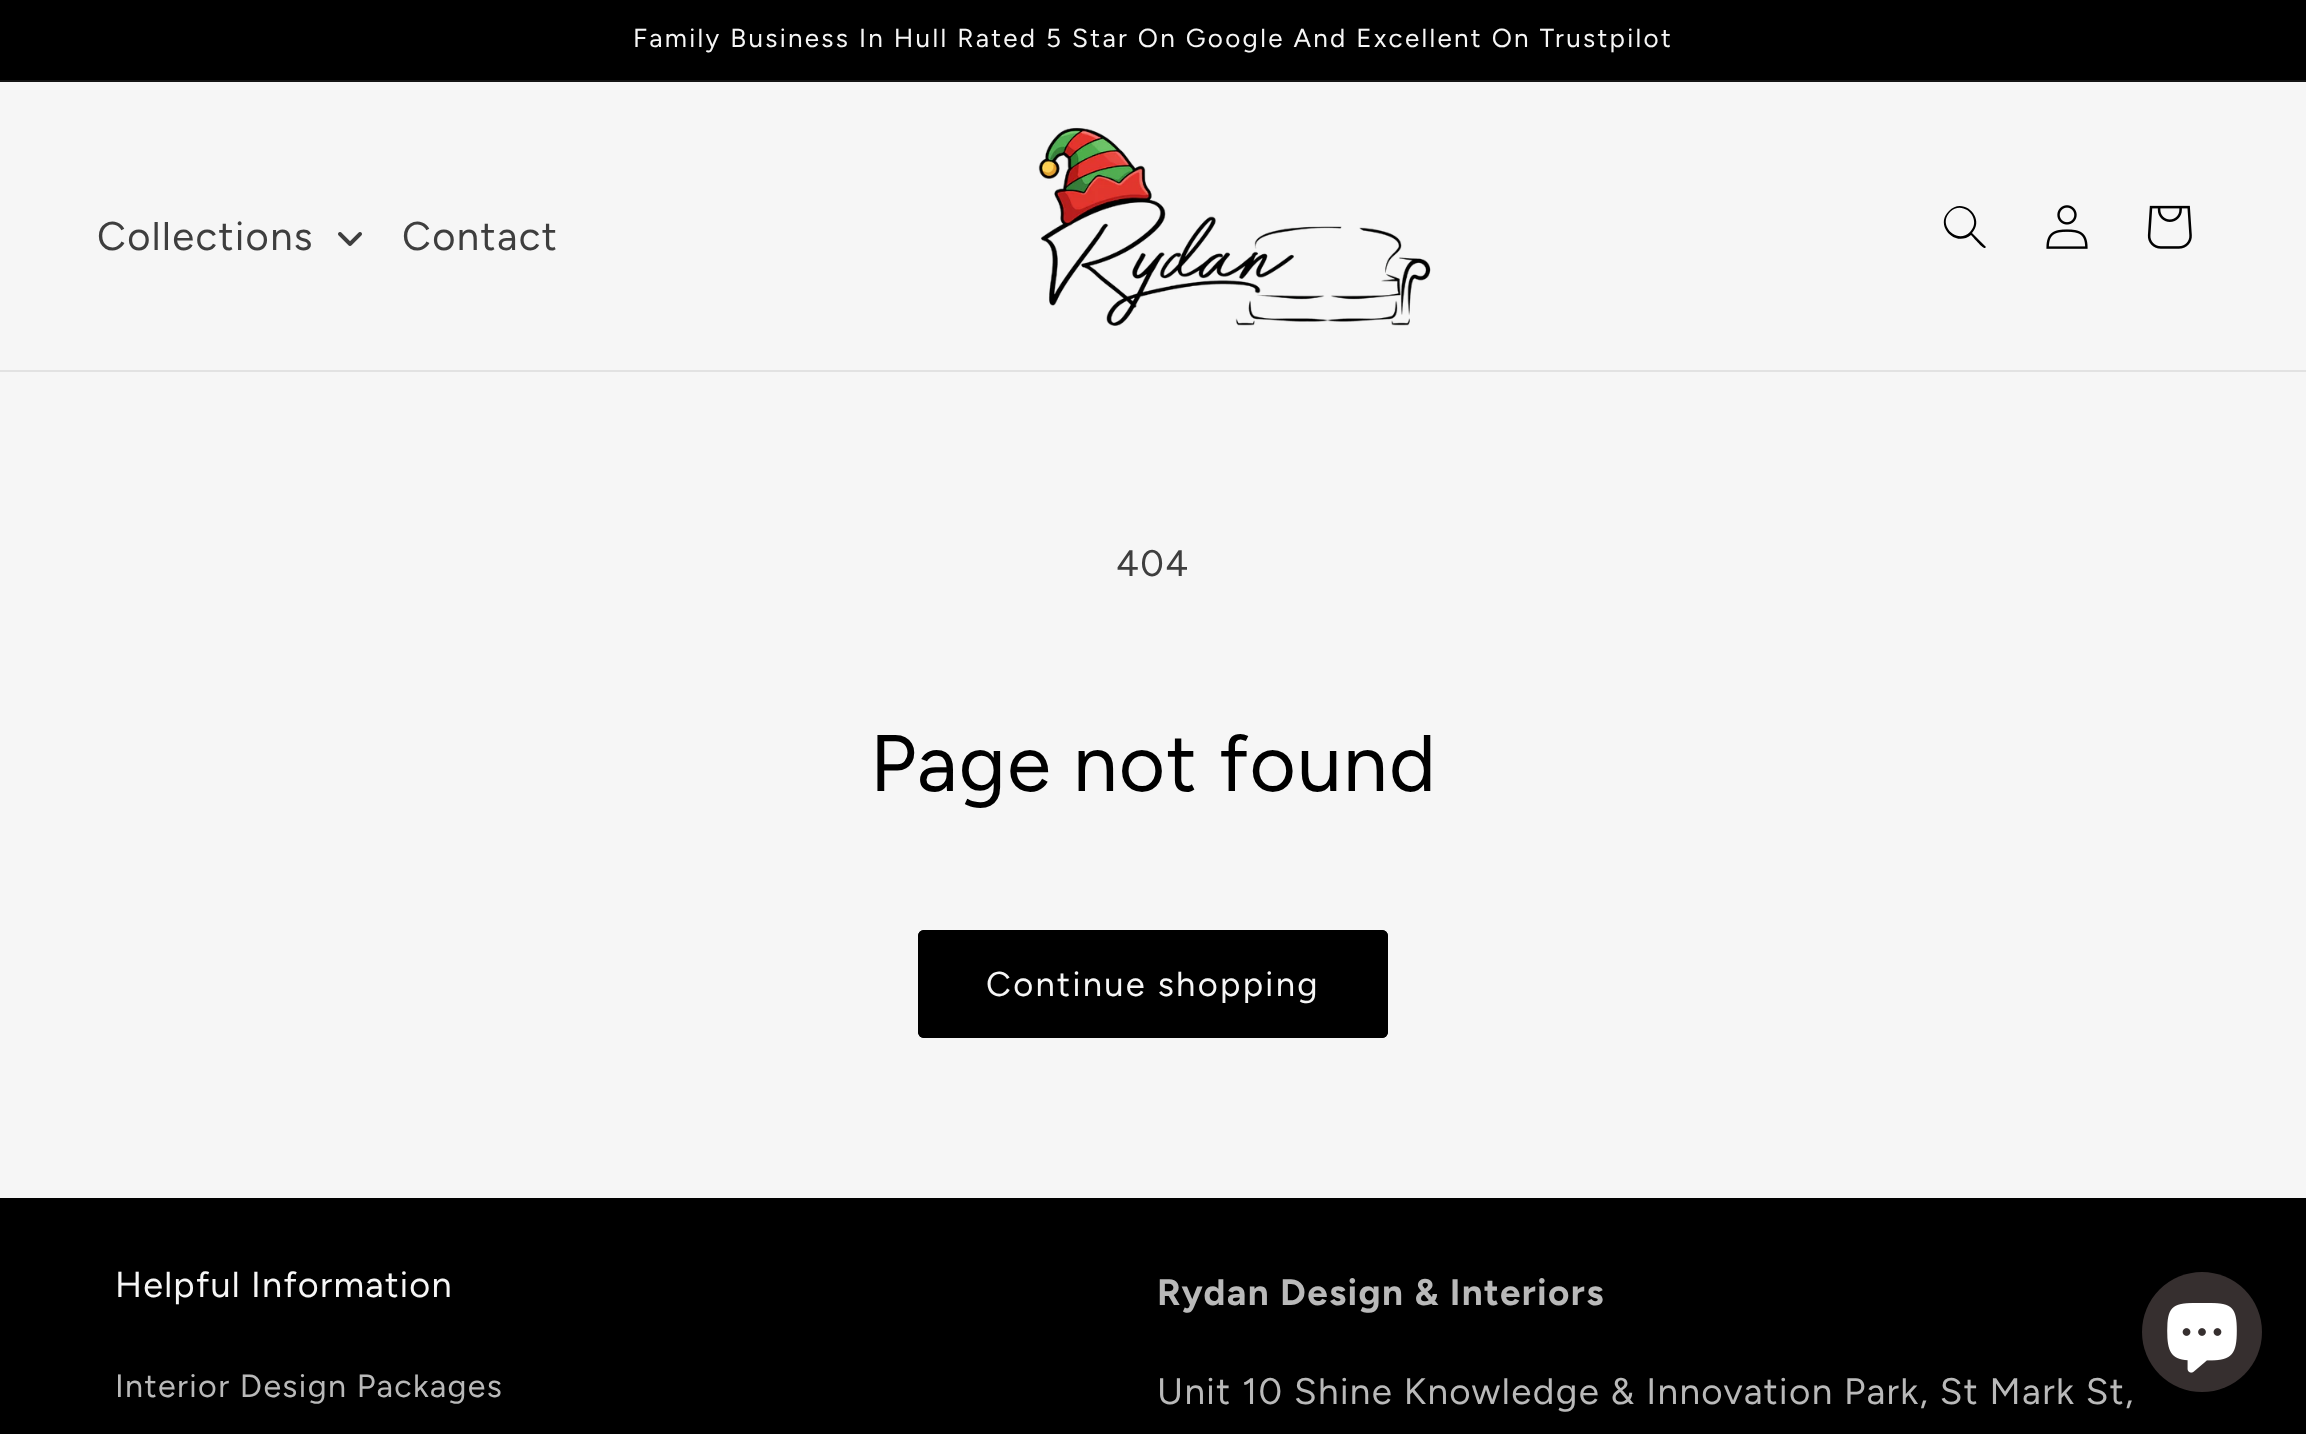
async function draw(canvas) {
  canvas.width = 2306
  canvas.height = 1434
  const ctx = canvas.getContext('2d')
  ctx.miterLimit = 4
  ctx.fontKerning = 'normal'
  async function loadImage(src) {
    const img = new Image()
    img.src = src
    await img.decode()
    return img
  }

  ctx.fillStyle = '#f6f6f6'
  ctx.fillRect(0, 0, 2306, 1434)
  ctx.fillStyle = '#000'
  ctx.fillRect(0, 0, 2306, 80)
  ctx.fillStyle = '#141414'
  ctx.fillRect(0, 80, 2306, 2)
  ctx.letterSpacing = '2.3px'
  ctx.font = '26px Figtree'
  ctx.fillStyle = '#f6f6f6'
  ctx.fillText('Family Business In Hull Rated 5 Star On Google And Excellent On Trustpilot', 633, 47)
  ctx.fillStyle = '#e2e2e2'
  ctx.fillRect(0, 370, 2306, 2)
  ctx.letterSpacing = '1.38px'
  ctx.font = '40px Figtree'
  ctx.fillStyle = '#3e3e3e'
  ctx.fillText('Collections', 97, 250)
  ctx.drawImage(await loadImage('image0.png'), 338, 232, 24, 14)
  ctx.fillText('Contact', 402, 250)
  ctx.drawImage(await loadImage('image1.png'), 1038, 127, 393, 199)
  ctx.fillStyle = '#000'
  ctx.beginPath()
  ctx.moveTo(1970, 232)
  ctx.bezierCurveTo(1957, 245, 1937, 225, 1950, 212)
  ctx.bezierCurveTo(1963, 199, 1983, 219, 1970, 232)
  ctx.closePath()
  ctx.moveTo(1971, 235)
  ctx.bezierCurveTo(1955, 248, 1934, 225, 1949, 211)
  ctx.bezierCurveTo(1963, 196, 1986, 218, 1972, 233)
  ctx.lineTo(1986, 247)
  ctx.lineTo(1985, 248)
  ctx.bezierCurveTo(1983, 249, 1973, 237, 1971, 235)
  ctx.closePath()
  ctx.fill('evenodd')
  ctx.drawImage(await loadImage('image2.png'), 2046, 205, 42, 44)
  ctx.drawImage(await loadImage('image3.png'), 2147, 205, 45, 44)
  ctx.font = '36.8px Figtree'
  ctx.fillStyle = '#3e3e3e'
  ctx.fillText('404', 1116, 576)
  ctx.letterSpacing = '1.25px'
  ctx.font = '80px Figtree'
  ctx.fillStyle = '#000'
  ctx.fillText('Page not found', 870, 791)
  ctx.beginPath()
  ctx.roundRect(918, 930, 470, 108, 6)
  ctx.fill()
  ctx.beginPath()
  ctx.roundRect(919, 931, 468, 106, 5)
  ctx.strokeStyle = '#000'
  ctx.lineWidth = 2
  ctx.stroke()
  ctx.letterSpacing = '2.3px'
  ctx.font = '34.5px Figtree'
  ctx.fillStyle = '#f6f6f6'
  ctx.fillText('Continue shopping', 986, 996)
  ctx.fillStyle = '#000'
  ctx.fillRect(0, 1198, 2306, 236)
  ctx.letterSpacing = '1.25px'
  ctx.font = '36px Figtree'
  ctx.fillStyle = '#f6f6f6'
  ctx.fillText('Helpful Information', 115, 1297)
  ctx.letterSpacing = '1.38px'
  ctx.font = '32.25px Figtree'
  ctx.fillStyle = '#b9b9b9'
  ctx.fillText('Interior Design Packages', 115, 1397)
  ctx.font = 'bold 36.8px Figtree'
  ctx.fillText('Rydan Design & Interiors', 1157, 1305)
  ctx.font = '36.8px Figtree'
  ctx.fillText('Unit 10 Shine Knowledge & Innovation Park, St Mark St,', 1157, 1404)
  ctx.fillStyle = '#362f2f'
  ctx.beginPath()
  ctx.arc(2202, 1332, 60, 0, 2 * Math.PI)
  ctx.fill()
  ctx.drawImage(await loadImage('image4.png'), 2167, 1303, 70, 70)
}

draw(document.querySelector('canvas'))
